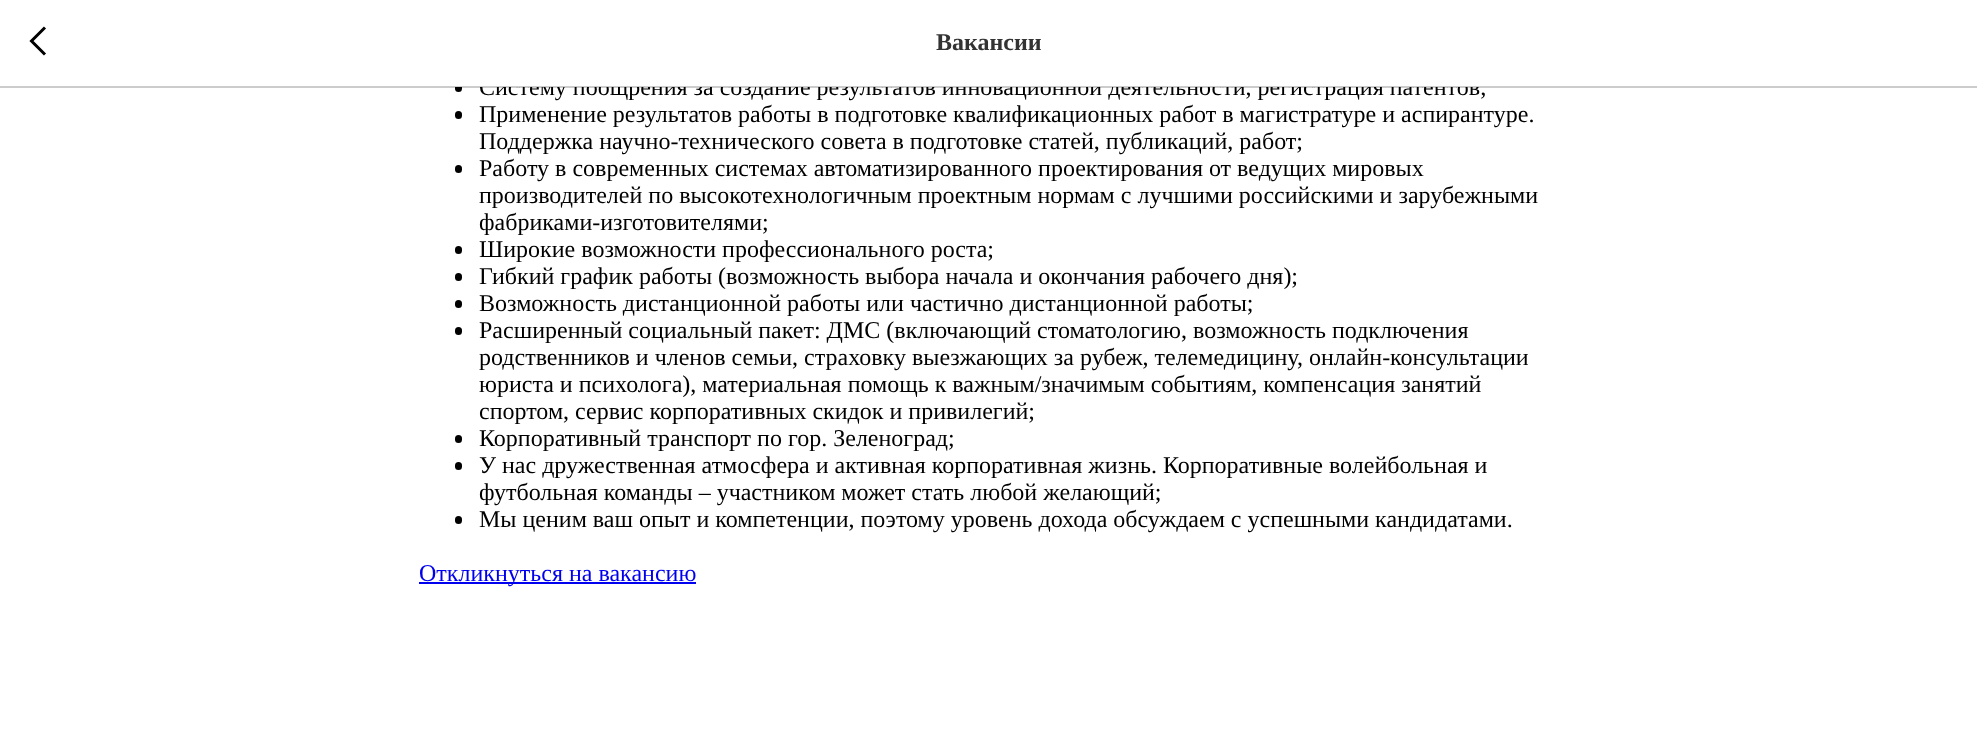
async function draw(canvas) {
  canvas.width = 1977
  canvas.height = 729
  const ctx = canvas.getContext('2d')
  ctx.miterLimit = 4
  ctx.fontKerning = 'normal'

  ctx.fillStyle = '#fff'
  ctx.fillRect(0, 0, 1977, 729)
  ctx.fillStyle = '#000'
  ctx.beginPath()
  ctx.roundRect(455, 84, 7, 8, 3.5)
  ctx.fill()
  ctx.font = '24px Liberation Serif'
  ctx.fillText('Систему поощрения за создание результатов инновационной деятельности, регистрация патентов;', 479, 95)
  ctx.fillStyle = '#fff'
  ctx.fillRect(455, 78, 1030, 9)
  ctx.fillStyle = '#00000033'
  ctx.fillRect(0, 86, 1977, 2)
  ctx.beginPath()
  ctx.moveTo(45, 54.5)
  ctx.lineTo(31.5, 41)
  ctx.lineTo(45, 27.5)
  ctx.strokeStyle = '#000'
  ctx.lineWidth = 3
  ctx.stroke()
  ctx.font = 'bold 24px Liberation Serif'
  ctx.fillStyle = '#333'
  ctx.fillText('Вакансии', 936, 50)
  ctx.fillStyle = '#000'
  ctx.beginPath()
  ctx.roundRect(455, 111, 7, 8, 3.5)
  ctx.fill()
  ctx.font = '24px Liberation Serif'
  ctx.fillText('Применение результатов работы в подготовке квалификационных работ в магистратуре и аспирантуре.', 479, 122)
  ctx.fillText('Поддержка научно-технического совета в подготовке статей, публикаций, работ;', 479, 149)
  ctx.beginPath()
  ctx.roundRect(455, 165, 7, 8, 3.5)
  ctx.fill()
  ctx.fillText('Работу в современных системах автоматизированного проектирования от ведущих мировых', 479, 176)
  ctx.fillText('производителей по высокотехнологичным проектным нормам с лучшими российскими и зарубежными', 479, 203)
  ctx.fillText('фабриками-изготовителями;', 479, 230)
  ctx.beginPath()
  ctx.roundRect(455, 246, 7, 8, 3.5)
  ctx.fill()
  ctx.fillText('Широкие возможности профессионального роста;', 479, 257)
  ctx.beginPath()
  ctx.roundRect(455, 273, 7, 8, 3.5)
  ctx.fill()
  ctx.fillText('Гибкий график работы (возможность выбора начала и окончания рабочего дня);', 479, 284)
  ctx.beginPath()
  ctx.roundRect(455, 300, 7, 8, 3.5)
  ctx.fill()
  ctx.fillText('Возможность дистанционной работы или частично дистанционной работы;', 479, 311)
  ctx.beginPath()
  ctx.roundRect(455, 327, 7, 8, 3.5)
  ctx.fill()
  ctx.fillText('Расширенный социальный пакет: ДМС (включающий стоматологию, возможность подключения', 479, 338)
  ctx.fillText('родственников и членов семьи, страховку выезжающих за рубеж, телемедицину, онлайн-консультации', 479, 365)
  ctx.fillText('юриста и психолога), материальная помощь к важным/значимым событиям, компенсация занятий', 479, 392)
  ctx.fillText('спортом, сервис корпоративных скидок и привилегий;', 479, 419)
  ctx.beginPath()
  ctx.roundRect(455, 435, 7, 8, 3.5)
  ctx.fill()
  ctx.fillText('Корпоративный транспорт по гор. Зеленоград;', 479, 446)
  ctx.beginPath()
  ctx.roundRect(455, 462, 7, 8, 3.5)
  ctx.fill()
  ctx.fillText('У нас дружественная атмосфера и активная корпоративная жизнь. Корпоративные волейбольная и', 479, 473)
  ctx.fillText('футбольная команды – участником может стать любой желающий;', 479, 500)
  ctx.beginPath()
  ctx.roundRect(455, 516, 7, 8, 3.5)
  ctx.fill()
  ctx.fillText('Мы ценим ваш опыт и компетенции, поэтому уровень дохода обсуждаем с успешными кандидатами.', 479, 527)
  ctx.fillStyle = '#00e'
  ctx.fillRect(419, 582, 277, 2)
  ctx.fillText('Откликнуться на вакансию', 419, 581)
}

draw(document.querySelector('canvas'))
